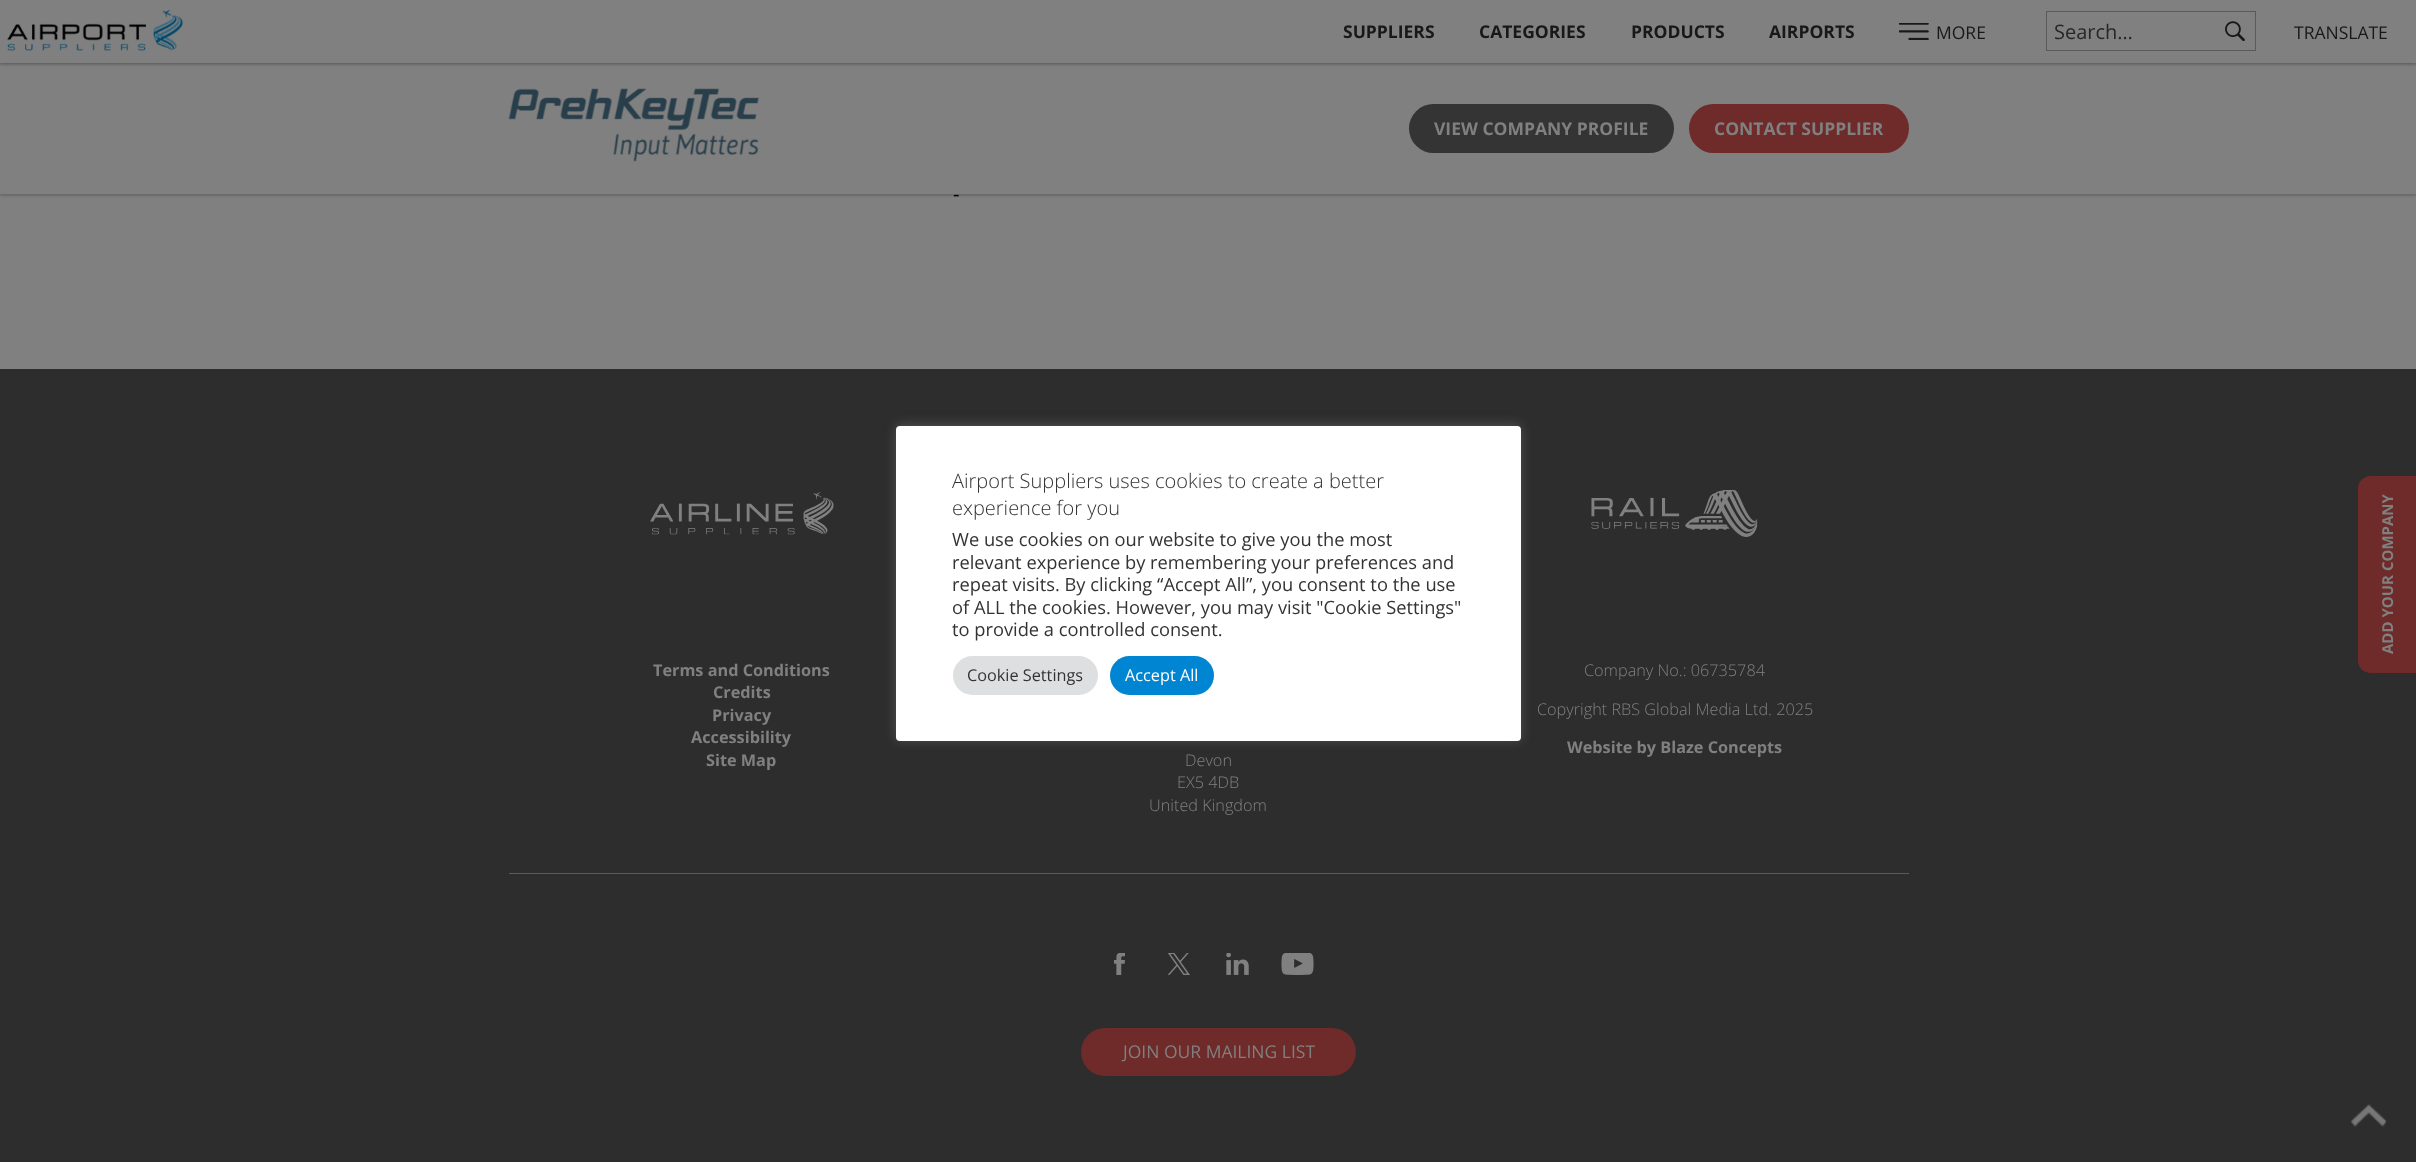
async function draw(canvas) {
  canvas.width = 2416
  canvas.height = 1162
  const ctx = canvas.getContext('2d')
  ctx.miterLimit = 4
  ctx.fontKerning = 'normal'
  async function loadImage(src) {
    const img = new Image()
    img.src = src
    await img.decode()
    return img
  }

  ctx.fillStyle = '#808080'
  ctx.fillRect(0, 0, 2416, 1162)
  ctx.fillStyle = '#22222240'
  ctx.filter = 'blur(1px)'
  ctx.beginPath()
  ctx.rect(0, 65, 2416, 131)
  ctx.fill()
  ctx.filter = 'none'
  ctx.fillStyle = '#808080'
  ctx.fillRect(0, 64, 2416, 130)
  ctx.save()
  ctx.beginPath()
  ctx.moveTo(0, 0)
  ctx.lineTo(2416, 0)
  ctx.lineTo(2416, 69)
  ctx.lineTo(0, 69)
  ctx.closePath()
  ctx.moveTo(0, 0)
  ctx.lineTo(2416, 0)
  ctx.lineTo(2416, 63)
  ctx.lineTo(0, 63)
  ctx.closePath()
  ctx.clip('evenodd')
  ctx.fillStyle = '#18181840'
  ctx.filter = 'blur(1px)'
  ctx.beginPath()
  ctx.rect(0, 3, 2416, 62)
  ctx.fill()
  ctx.filter = 'none'
  ctx.restore()
  ctx.drawImage(await loadImage('image0.png'), 7, 9, 176, 42)
  ctx.font = 'bold 17.5px Open Sans'
  ctx.fillStyle = '#181818'
  ctx.fillText('SUPPLIERS', 1343, 38)
  ctx.fillText('CATEGORIES', 1479, 38)
  ctx.fillText('PRODUCTS', 1631, 38)
  ctx.fillText('AIRPORTS', 1769, 38)
  ctx.drawImage(await loadImage('image1.png'), 1899, 23, 30, 17)
  ctx.font = '17.5px Open Sans'
  ctx.fillText('MORE', 1936, 39)
  ctx.strokeStyle = '#5a5a5b'
  ctx.strokeRect(2046.5, 11.5, 209, 39)
  ctx.font = '20px Open Sans'
  ctx.fillStyle = '#272728'
  ctx.fillText('Search…', 2054, 39)
  ctx.drawImage(await loadImage('image2.png'), 2225, 21, 20, 20)
  ctx.font = '17.5px Open Sans'
  ctx.fillStyle = '#181818'
  ctx.fillText('TRANSLATE', 2294, 39)
  ctx.drawImage(await loadImage('image3.png'), 508, 88, 251, 74)
  ctx.fillStyle = '#343435'
  ctx.beginPath()
  ctx.roundRect(1409, 104, 265, 49, 24.5)
  ctx.fill()
  ctx.font = 'bold 17.5px Open Sans'
  ctx.fillStyle = '#808080'
  ctx.fillText('VIEW COMPANY PROFILE', 1434, 135)
  ctx.fillStyle = '#6f2a2a'
  ctx.beginPath()
  ctx.roundRect(1689, 104, 220, 49, 24.5)
  ctx.fill()
  ctx.fillStyle = '#808080'
  ctx.fillText('CONTACT SUPPLIER', 1714, 135)
  ctx.font = '20px Open Sans'
  ctx.fillStyle = '#000'
  ctx.fillText('-', 953, 201)
  ctx.fillStyle = '#2d2d2d'
  ctx.fillRect(0, 369, 2416, 793)
  ctx.drawImage(await loadImage('image4.png'), 650, 492, 184, 43)
  ctx.drawImage(await loadImage('image5.png'), 1591, 490, 167, 47)
  ctx.font = 'bold 16.25px Open Sans'
  ctx.fillStyle = '#808080'
  ctx.fillText('Terms and Conditions', 653, 676)
  ctx.fillText('Credits', 713, 698)
  ctx.fillText('Privacy', 712, 721)
  ctx.fillText('Accessibility', 691, 743)
  ctx.fillText('Site Map', 706, 766)
  ctx.font = '300 16.25px Open Sans'
  ctx.fillText('Company No.: 06735784', 1584, 676)
  ctx.fillText('Copyright RBS Global Media Ltd. 2025', 1537, 715)
  ctx.font = 'bold 16.25px Open Sans'
  ctx.fillText('Website by Blaze Concepts', 1567, 753)
  ctx.font = '300 16.25px Open Sans'
  ctx.fillText('Devon', 1185, 766)
  ctx.fillText('EX5 4DB', 1177, 788)
  ctx.fillText('United Kingdom', 1149, 811)
  ctx.fillStyle = '#5a5a5b'
  ctx.fillRect(509, 873, 1400, 1)
  ctx.drawImage(await loadImage('image6.png'), 1114, 953, 11, 22)
  ctx.drawImage(await loadImage('image7.png'), 1167, 953, 23, 22)
  ctx.drawImage(await loadImage('image8.png'), 1226, 953, 23, 22)
  ctx.drawImage(await loadImage('image9.png'), 1281, 953, 33, 22)
  ctx.fillStyle = '#6f2a2a'
  ctx.beginPath()
  ctx.roundRect(1081, 1028, 275, 48, 24)
  ctx.fill()
  ctx.font = '17.5px Open Sans'
  ctx.fillStyle = '#808080'
  ctx.fillText('JOIN OUR MAILING LIST', 1123, 1058)
  ctx.fillStyle = '#acabab4d'
  ctx.filter = 'blur(6px)'
  ctx.beginPath()
  ctx.roundRect(896, 425, 625, 315, 4)
  ctx.fill()
  ctx.filter = 'none'
  ctx.fillStyle = '#fff'
  ctx.beginPath()
  ctx.roundRect(896, 426, 625, 315, 4)
  ctx.fill()
  ctx.font = '300 20px Open Sans'
  ctx.fillStyle = '#333'
  ctx.fillText('Airport Suppliers uses cookies to create a better', 952, 488)
  ctx.fillText('experience for you', 952, 515)
  ctx.font = '18.3px Open Sans'
  ctx.fillText('We use cookies on our website to give you the most', 952, 546)
  ctx.fillText('relevant experience by remembering your preferences and', 952, 569)
  ctx.fillText('repeat visits. By clicking “Accept All”, you consent to the use', 952, 591)
  ctx.fillText('of ALL the cookies. However, you may visit "Cookie Settings"', 952, 614)
  ctx.fillText('to provide a controlled consent.', 952, 636)
  ctx.fillStyle = '#dedfe0'
  ctx.beginPath()
  ctx.roundRect(953, 656, 145, 39, 19.5)
  ctx.fill()
  ctx.font = '16.25px Open Sans'
  ctx.fillStyle = '#333'
  ctx.fillText('Cookie Settings', 967, 681)
  ctx.fillStyle = '#0085d2'
  ctx.beginPath()
  ctx.roundRect(1110, 656, 104, 39, 19.5)
  ctx.fill()
  ctx.fillStyle = '#fff'
  ctx.fillText('Accept All', 1125, 681)
  ctx.fillStyle = '#6f2a2a'
  ctx.beginPath()
  ctx.moveTo(2358, 661)
  ctx.lineTo(2358, 488)
  ctx.bezierCurveTo(2358, 481, 2364, 476, 2371, 476)
  ctx.lineTo(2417, 476)
  ctx.lineTo(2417, 673)
  ctx.lineTo(2371, 673)
  ctx.bezierCurveTo(2364, 673, 2358, 668, 2358, 661)
  ctx.closePath()
  ctx.fill()
  ctx.font = 'bold 15px Open Sans'
  ctx.fillStyle = '#808080'
  ctx.save()
  ctx.translate(2393, 654)
  ctx.rotate(-90 * Math.PI / 180)
  ctx.fillText('ADD YOUR COMPANY', 0, 0)
  ctx.restore()
  ctx.drawImage(await loadImage('image10.png'), 2351, 1104, 35, 23)
}

draw(document.querySelector('canvas'))
